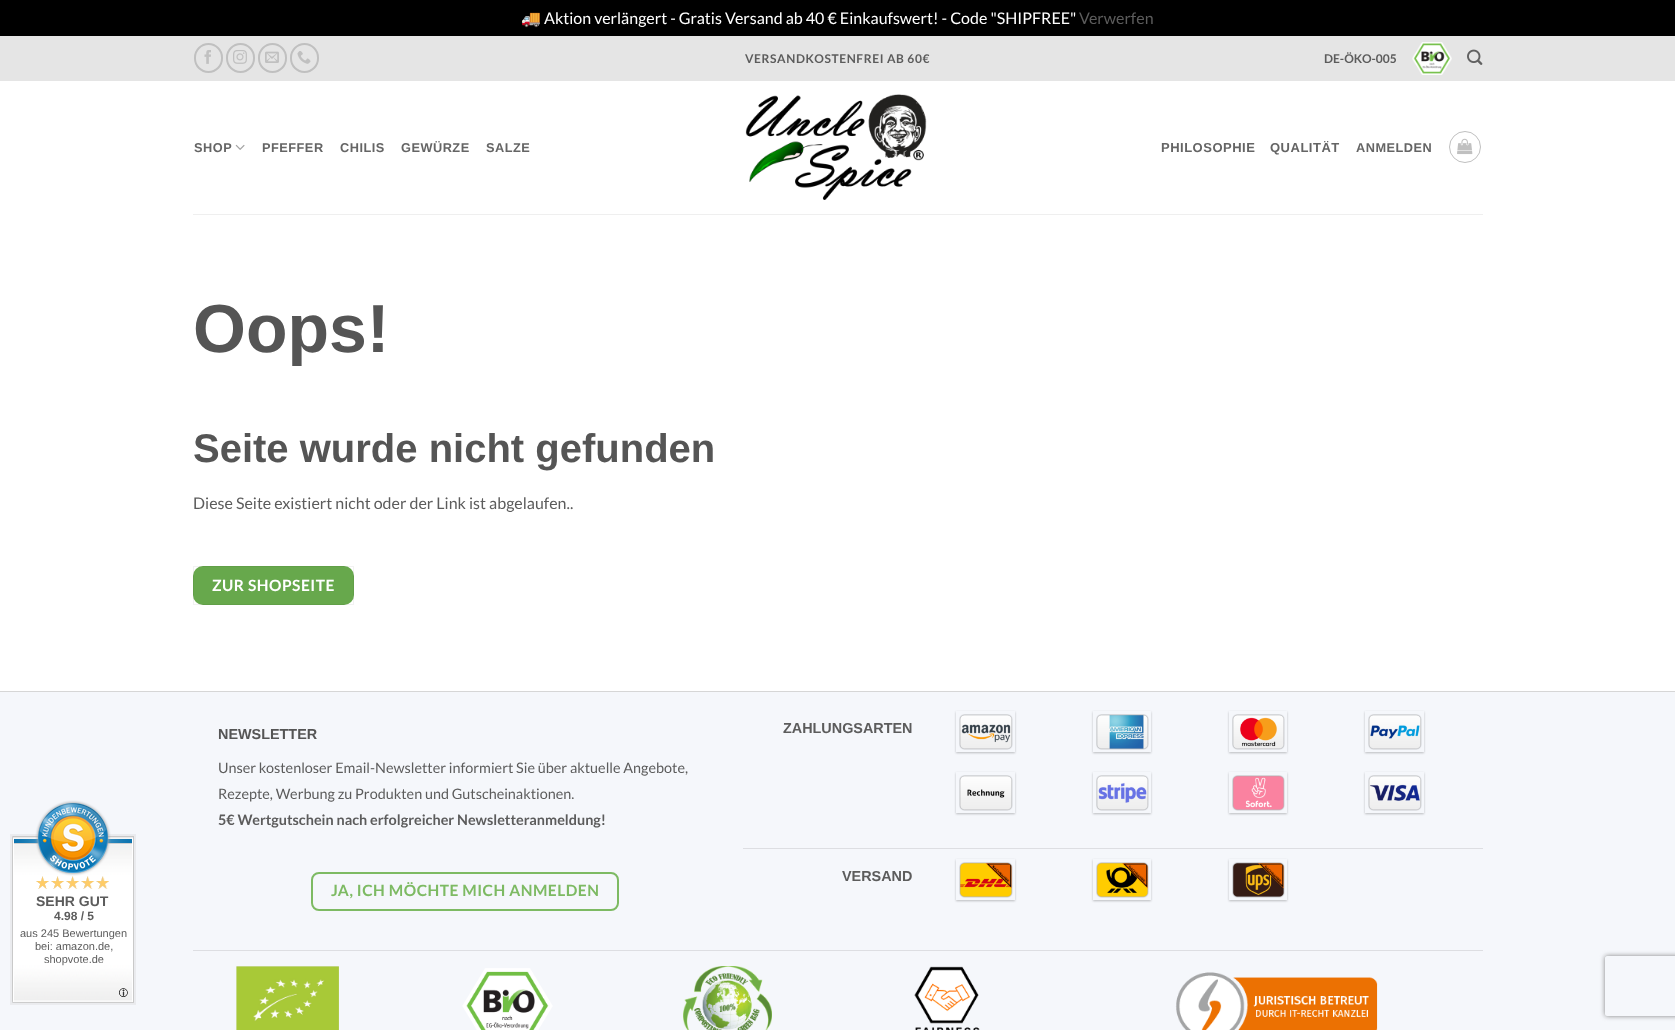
async function draw(canvas) {
  canvas.width = 1675
  canvas.height = 1030
  const ctx = canvas.getContext('2d')
  ctx.miterLimit = 4
  ctx.fontKerning = 'normal'
  async function loadImage(src) {
    const img = new Image()
    img.src = src
    await img.decode()
    return img
  }

  ctx.fillStyle = '#000'
  ctx.fillRect(0, 0, 1675, 1030)
  ctx.font = '16px Noto Color Emoji'
  ctx.fillStyle = '#fff'
  ctx.fillText('🚚', 521, 24)
  ctx.font = '16px Lato'
  ctx.fillText('Aktion verlängert - Gratis Versand ab 40 € Einkaufswert! - Code "SHIPFREE"', 544, 24)
  ctx.fillStyle = '#5c5c5c'
  ctx.fillText('Verwerfen', 1079, 24)
  ctx.fillStyle = '#fff'
  ctx.fillRect(0, 81, 1675, 610)
  ctx.fillStyle = '#e5e5e5'
  ctx.fillRect(0, 36, 1675, 45)
  ctx.beginPath()
  ctx.roundRect(195, 44, 27, 28, 13.5)
  ctx.strokeStyle = '#c0c0c0'
  ctx.lineWidth = 2
  ctx.stroke()
  ctx.drawImage(await loadImage('image0.png'), 204, 50, 7, 14)
  ctx.beginPath()
  ctx.roundRect(227, 44, 27, 28, 13.5)
  ctx.stroke()
  ctx.drawImage(await loadImage('image1.png'), 233, 50, 14, 14)
  ctx.beginPath()
  ctx.roundRect(259, 44, 27, 28, 13.5)
  ctx.stroke()
  ctx.drawImage(await loadImage('image2.png'), 265, 51, 14, 12)
  ctx.beginPath()
  ctx.roundRect(291, 44, 27, 28, 13.5)
  ctx.stroke()
  ctx.drawImage(await loadImage('image3.png'), 297, 51, 14, 13)
  ctx.letterSpacing = '0.6px'
  ctx.font = 'bold 12px Lato'
  ctx.fillStyle = '#5c5c5c'
  ctx.fillText('VERSANDKOSTENFREI AB 60€', 745, 63)
  ctx.letterSpacing = '0px'
  ctx.fillText('DE-ÖKO-005', 1324, 63)
  ctx.drawImage(await loadImage('image4.png'), 1412, 42, 40, 33)
  ctx.drawImage(await loadImage('image5.png'), 1467, 49, 16, 16)
  ctx.letterSpacing = '0.5px'
  ctx.font = 'bold 12.75px Liberation Sans'
  ctx.fillStyle = '#656565'
  ctx.fillText('SHOP', 194, 152)
  ctx.drawImage(await loadImage('image6.png'), 235, 144, 10, 6)
  ctx.fillText('PFEFFER', 262, 152)
  ctx.fillText('CHILIS', 340, 152)
  ctx.fillText('GEWÜRZE', 401, 152)
  ctx.fillText('SALZE', 486, 152)
  ctx.drawImage(await loadImage('image7.png'), 745, 94, 182, 106)
  ctx.font = 'bold 13px Liberation Sans'
  ctx.fillText('PHILOSOPHIE', 1161, 152)
  ctx.fillText('QUALITÄT', 1270, 152)
  ctx.font = 'bold 12.75px Liberation Sans'
  ctx.fillText('ANMELDEN', 1356, 152)
  ctx.beginPath()
  ctx.arc(1465, 147, 15.5, 0, 2 * Math.PI)
  ctx.lineWidth = 1
  ctx.stroke()
  ctx.drawImage(await loadImage('image8.png'), 1457, 138, 16, 17)
  ctx.fillStyle = '#efefef'
  ctx.fillRect(193, 214, 1290, 1)
  ctx.letterSpacing = '0px'
  ctx.font = 'bold 68px Liberation Sans'
  ctx.fillStyle = '#555'
  ctx.fillText('Oops!', 193, 352)
  ctx.font = 'bold 40px Liberation Sans'
  ctx.fillText('Seite wurde nicht gefunden', 193, 462)
  ctx.font = '16px Lato'
  ctx.fillStyle = '#5c5c5c'
  ctx.fillText('Diese Seite existiert nicht oder der Link ist abgelaufen..', 193, 509)
  ctx.fillStyle = '#67a84c'
  ctx.beginPath()
  ctx.roundRect(193, 566, 161, 39, 10)
  ctx.fill()
  ctx.strokeStyle = '#0000000d'
  ctx.strokeRect(193.5, 566.5, 160, 38)
  ctx.letterSpacing = '0.5px'
  ctx.font = 'bold 15.5px Lato'
  ctx.fillStyle = '#fff'
  ctx.fillText('ZUR SHOPSEITE', 212, 591)
  ctx.fillStyle = '#f5f7fb'
  ctx.fillRect(0, 692, 1675, 338)
  ctx.fillStyle = '#d6d6d6'
  ctx.fillRect(0, 691, 1675, 1)
  ctx.letterSpacing = '0px'
  ctx.font = 'bold 14.4px Liberation Sans'
  ctx.fillStyle = '#555'
  ctx.fillText('NEWSLETTER', 218, 739)
  ctx.font = '14.4px Lato'
  ctx.fillStyle = '#5c5c5c'
  ctx.fillText('Unser kostenloser Email-Newsletter informiert Sie über aktuelle Angebote,', 218, 773)
  ctx.fillText('Rezepte, Werbung zu Produkten und Gutscheinaktionen.', 218, 799)
  ctx.font = 'bold 14.4px Lato'
  ctx.fillText('5€ Wertgutschein nach erfolgreicher Newsletteranmeldung!', 218, 825)
  ctx.beginPath()
  ctx.roundRect(312, 873, 306, 37, 7)
  ctx.strokeStyle = '#7dba63'
  ctx.lineWidth = 2
  ctx.stroke()
  ctx.letterSpacing = '0.5px'
  ctx.font = 'bold 15.5px Lato'
  ctx.fillStyle = '#7dba63'
  ctx.fillText('JA, ICH MÖCHTE MICH ANMELDEN', 331, 896)
  ctx.letterSpacing = '0px'
  ctx.font = 'bold 14.4px Liberation Sans'
  ctx.fillStyle = '#5c5c5c'
  ctx.fillText('ZAHLUNGSARTEN', 783, 733)
  ctx.save()
  ctx.beginPath()
  ctx.moveTo(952, 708)
  ctx.lineTo(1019, 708)
  ctx.lineTo(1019, 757)
  ctx.lineTo(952, 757)
  ctx.closePath()
  ctx.moveTo(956, 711)
  ctx.lineTo(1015, 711)
  ctx.lineTo(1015, 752)
  ctx.lineTo(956, 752)
  ctx.closePath()
  ctx.clip('evenodd')
  ctx.fillStyle = '#0000003d'
  ctx.filter = 'blur(1px)'
  ctx.beginPath()
  ctx.rect(956, 712, 59, 41)
  ctx.fill()
  ctx.filter = 'none'
  ctx.restore()
  ctx.drawImage(await loadImage('image9.png'), 959, 714, 54, 36)
  ctx.save()
  ctx.beginPath()
  ctx.moveTo(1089, 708)
  ctx.lineTo(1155, 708)
  ctx.lineTo(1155, 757)
  ctx.lineTo(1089, 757)
  ctx.closePath()
  ctx.moveTo(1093, 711)
  ctx.lineTo(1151, 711)
  ctx.lineTo(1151, 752)
  ctx.lineTo(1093, 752)
  ctx.closePath()
  ctx.clip('evenodd')
  ctx.fillStyle = '#0000003d'
  ctx.filter = 'blur(1px)'
  ctx.beginPath()
  ctx.rect(1093, 712, 58, 41)
  ctx.fill()
  ctx.filter = 'none'
  ctx.restore()
  ctx.drawImage(await loadImage('image10.png'), 1096, 714, 53, 36)
  ctx.save()
  ctx.beginPath()
  ctx.moveTo(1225, 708)
  ctx.lineTo(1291, 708)
  ctx.lineTo(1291, 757)
  ctx.lineTo(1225, 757)
  ctx.closePath()
  ctx.moveTo(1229, 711)
  ctx.lineTo(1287, 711)
  ctx.lineTo(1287, 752)
  ctx.lineTo(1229, 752)
  ctx.closePath()
  ctx.clip('evenodd')
  ctx.fillStyle = '#0000003d'
  ctx.filter = 'blur(1px)'
  ctx.beginPath()
  ctx.rect(1229, 712, 58, 41)
  ctx.fill()
  ctx.filter = 'none'
  ctx.restore()
  ctx.drawImage(await loadImage('image11.png'), 1232, 714, 53, 36)
  ctx.save()
  ctx.beginPath()
  ctx.moveTo(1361, 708)
  ctx.lineTo(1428, 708)
  ctx.lineTo(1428, 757)
  ctx.lineTo(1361, 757)
  ctx.closePath()
  ctx.moveTo(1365, 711)
  ctx.lineTo(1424, 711)
  ctx.lineTo(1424, 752)
  ctx.lineTo(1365, 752)
  ctx.closePath()
  ctx.clip('evenodd')
  ctx.fillStyle = '#0000003d'
  ctx.filter = 'blur(1px)'
  ctx.beginPath()
  ctx.rect(1365, 712, 59, 41)
  ctx.fill()
  ctx.filter = 'none'
  ctx.restore()
  ctx.drawImage(await loadImage('image12.png'), 1368, 714, 54, 36)
  ctx.save()
  ctx.beginPath()
  ctx.moveTo(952, 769)
  ctx.lineTo(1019, 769)
  ctx.lineTo(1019, 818)
  ctx.lineTo(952, 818)
  ctx.closePath()
  ctx.moveTo(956, 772)
  ctx.lineTo(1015, 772)
  ctx.lineTo(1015, 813)
  ctx.lineTo(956, 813)
  ctx.closePath()
  ctx.clip('evenodd')
  ctx.fillStyle = '#0000003d'
  ctx.filter = 'blur(1px)'
  ctx.beginPath()
  ctx.rect(956, 773, 59, 41)
  ctx.fill()
  ctx.filter = 'none'
  ctx.restore()
  ctx.drawImage(await loadImage('image13.png'), 959, 775, 54, 36)
  ctx.save()
  ctx.beginPath()
  ctx.moveTo(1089, 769)
  ctx.lineTo(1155, 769)
  ctx.lineTo(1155, 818)
  ctx.lineTo(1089, 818)
  ctx.closePath()
  ctx.moveTo(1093, 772)
  ctx.lineTo(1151, 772)
  ctx.lineTo(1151, 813)
  ctx.lineTo(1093, 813)
  ctx.closePath()
  ctx.clip('evenodd')
  ctx.fillStyle = '#0000003d'
  ctx.filter = 'blur(1px)'
  ctx.beginPath()
  ctx.rect(1093, 773, 58, 41)
  ctx.fill()
  ctx.filter = 'none'
  ctx.restore()
  ctx.drawImage(await loadImage('image14.png'), 1096, 775, 53, 36)
  ctx.save()
  ctx.beginPath()
  ctx.moveTo(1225, 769)
  ctx.lineTo(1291, 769)
  ctx.lineTo(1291, 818)
  ctx.lineTo(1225, 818)
  ctx.closePath()
  ctx.moveTo(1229, 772)
  ctx.lineTo(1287, 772)
  ctx.lineTo(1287, 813)
  ctx.lineTo(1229, 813)
  ctx.closePath()
  ctx.clip('evenodd')
  ctx.fillStyle = '#0000003d'
  ctx.filter = 'blur(1px)'
  ctx.beginPath()
  ctx.rect(1229, 773, 58, 41)
  ctx.fill()
  ctx.filter = 'none'
  ctx.restore()
  ctx.drawImage(await loadImage('image15.png'), 1232, 775, 53, 36)
  ctx.save()
  ctx.beginPath()
  ctx.moveTo(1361, 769)
  ctx.lineTo(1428, 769)
  ctx.lineTo(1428, 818)
  ctx.lineTo(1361, 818)
  ctx.closePath()
  ctx.moveTo(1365, 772)
  ctx.lineTo(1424, 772)
  ctx.lineTo(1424, 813)
  ctx.lineTo(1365, 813)
  ctx.closePath()
  ctx.clip('evenodd')
  ctx.fillStyle = '#0000003d'
  ctx.filter = 'blur(1px)'
  ctx.beginPath()
  ctx.rect(1365, 773, 59, 41)
  ctx.fill()
  ctx.filter = 'none'
  ctx.restore()
  ctx.drawImage(await loadImage('image16.png'), 1368, 775, 54, 36)
  ctx.fillStyle = '#dddee2'
  ctx.fillRect(743, 848, 740, 1)
  ctx.fillStyle = '#5c5c5c'
  ctx.fillText('VERSAND', 842, 881)
  ctx.save()
  ctx.beginPath()
  ctx.moveTo(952, 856)
  ctx.lineTo(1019, 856)
  ctx.lineTo(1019, 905)
  ctx.lineTo(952, 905)
  ctx.closePath()
  ctx.moveTo(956, 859)
  ctx.lineTo(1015, 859)
  ctx.lineTo(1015, 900)
  ctx.lineTo(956, 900)
  ctx.closePath()
  ctx.clip('evenodd')
  ctx.fillStyle = '#0000003d'
  ctx.filter = 'blur(1px)'
  ctx.beginPath()
  ctx.rect(956, 860, 59, 41)
  ctx.fill()
  ctx.filter = 'none'
  ctx.restore()
  ctx.drawImage(await loadImage('image17.png'), 959, 862, 54, 36)
  ctx.save()
  ctx.beginPath()
  ctx.moveTo(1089, 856)
  ctx.lineTo(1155, 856)
  ctx.lineTo(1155, 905)
  ctx.lineTo(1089, 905)
  ctx.closePath()
  ctx.moveTo(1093, 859)
  ctx.lineTo(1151, 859)
  ctx.lineTo(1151, 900)
  ctx.lineTo(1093, 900)
  ctx.closePath()
  ctx.clip('evenodd')
  ctx.fillStyle = '#0000003d'
  ctx.filter = 'blur(1px)'
  ctx.beginPath()
  ctx.rect(1093, 860, 58, 41)
  ctx.fill()
  ctx.filter = 'none'
  ctx.restore()
  ctx.drawImage(await loadImage('image18.png'), 1096, 862, 53, 36)
  ctx.save()
  ctx.beginPath()
  ctx.moveTo(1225, 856)
  ctx.lineTo(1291, 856)
  ctx.lineTo(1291, 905)
  ctx.lineTo(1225, 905)
  ctx.closePath()
  ctx.moveTo(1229, 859)
  ctx.lineTo(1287, 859)
  ctx.lineTo(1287, 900)
  ctx.lineTo(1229, 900)
  ctx.closePath()
  ctx.clip('evenodd')
  ctx.fillStyle = '#0000003d'
  ctx.filter = 'blur(1px)'
  ctx.beginPath()
  ctx.rect(1229, 860, 58, 41)
  ctx.fill()
  ctx.filter = 'none'
  ctx.restore()
  ctx.drawImage(await loadImage('image19.png'), 1232, 862, 53, 36)
  ctx.fillStyle = '#dddee2'
  ctx.fillRect(193, 950, 1290, 1)
  ctx.drawImage(await loadImage('image20.png'), 236, 966, 103, 64)
  ctx.drawImage(await loadImage('image21.png'), 462, 968, 91, 62)
  ctx.drawImage(await loadImage('image22.png'), 683, 966, 89, 64)
  ctx.drawImage(await loadImage('image23.png'), 914, 966, 66, 64)
  ctx.drawImage(await loadImage('image24.png'), 1175, 972, 203, 58)
  ctx.drawImage(await loadImage('image25.png'), 10, 800, 126, 205)
  ctx.drawImage(await loadImage('image26.png'), 36, 876, 73, 13)
  ctx.font = 'bold 14px Liberation Sans'
  ctx.fillStyle = '#5c5c5c'
  ctx.fillText('SEHR GUT', 36, 906)
  ctx.font = 'bold 12px Liberation Sans'
  ctx.fillText('4.98 / 5', 54, 920)
  ctx.font = '11px Liberation Sans'
  ctx.fillText('aus 245 Bewertungen', 20, 937)
  ctx.fillText('bei: amazon.de,', 35, 950)
  ctx.fillText('shopvote.de', 44, 963)
  ctx.save()
  ctx.beginPath()
  ctx.moveTo(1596, 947)
  ctx.lineTo(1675, 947)
  ctx.lineTo(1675, 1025)
  ctx.lineTo(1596, 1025)
  ctx.closePath()
  ctx.moveTo(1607, 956)
  ctx.lineTo(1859, 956)
  ctx.bezierCurveTo(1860, 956, 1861, 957, 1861, 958)
  ctx.lineTo(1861, 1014)
  ctx.bezierCurveTo(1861, 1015, 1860, 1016, 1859, 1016)
  ctx.lineTo(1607, 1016)
  ctx.bezierCurveTo(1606, 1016, 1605, 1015, 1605, 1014)
  ctx.lineTo(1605, 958)
  ctx.bezierCurveTo(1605, 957, 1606, 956, 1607, 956)
  ctx.closePath()
  ctx.clip('evenodd')
  ctx.fillStyle = '#808080'
  ctx.filter = 'blur(2.5px)'
  ctx.beginPath()
  ctx.roundRect(1605, 956, 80, 60, 2)
  ctx.fill()
  ctx.filter = 'none'
  ctx.restore()
}

draw(document.querySelector('canvas'))
